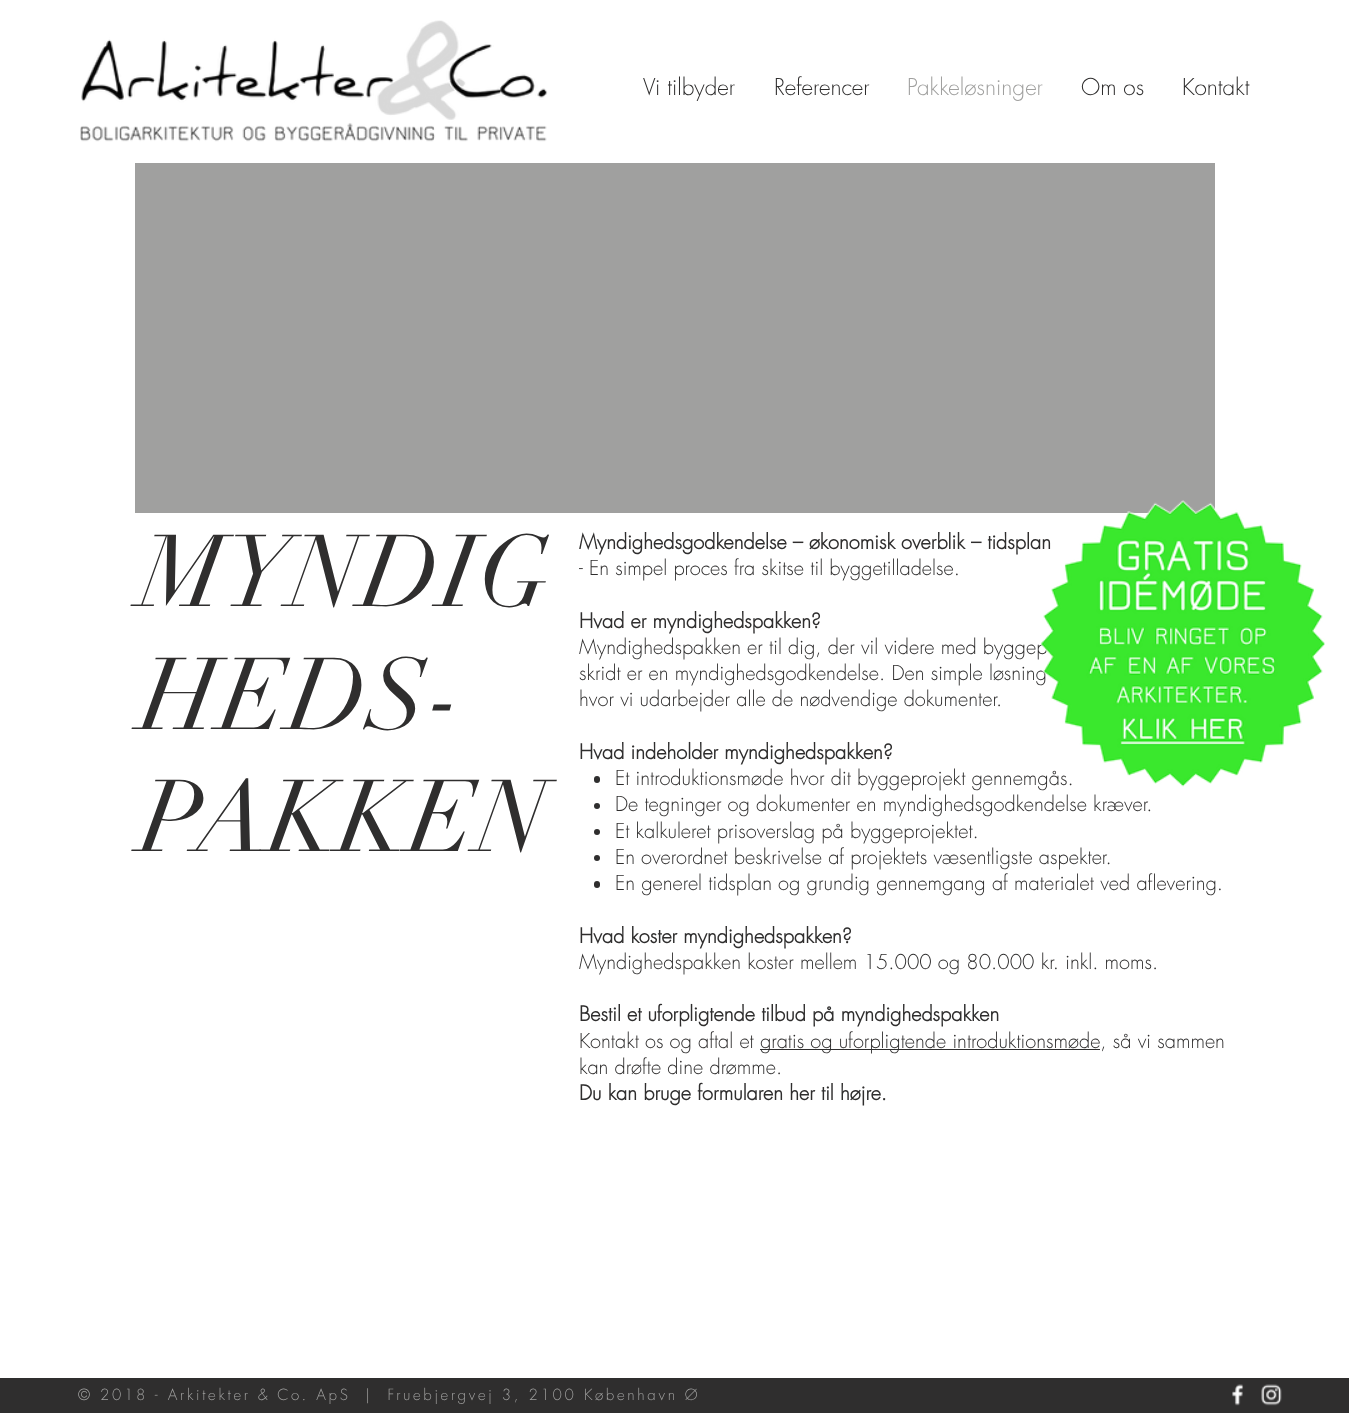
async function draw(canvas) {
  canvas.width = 1349
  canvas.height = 1413
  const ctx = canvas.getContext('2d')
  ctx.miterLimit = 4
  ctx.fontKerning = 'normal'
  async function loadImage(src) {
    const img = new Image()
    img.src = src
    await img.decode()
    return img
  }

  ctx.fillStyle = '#fff'
  ctx.fillRect(0, 0, 1349, 1413)
  ctx.drawImage(await loadImage('image0.png'), 80, 20, 468, 122)
  ctx.font = '300 22.5px futura'
  ctx.fillStyle = '#2f2e2e'
  ctx.fillText('Vi tilbyder', 643, 95)
  ctx.fillText('Referencer', 774, 95)
  ctx.fillStyle = '#a0a09f'
  ctx.fillText('Pakkeløsninger', 907, 95)
  ctx.fillStyle = '#2f2e2e'
  ctx.fillText('Om os', 1081, 95)
  ctx.fillText('Kontakt', 1182, 95)
  ctx.fillStyle = '#a0a09f'
  ctx.fillRect(135, 163, 1080, 350)
  ctx.font = 'bold 20px futura'
  ctx.fillStyle = '#2f2e2e'
  ctx.fillText('Myndighedsgodkendelse – økonomisk overblik – tidsplan', 579, 549)
  ctx.font = '300 20px futura'
  ctx.fillText('Myndighedspakken er til dig, der vil videre med byggep', 579, 654)
  ctx.fillText('skridt er en myndighedsgodkendelse. Den simple løsning', 579, 680)
  ctx.fillText('Et introduktionsmøde hvor dit byggeprojekt gennemgås.', 615, 785)
  ctx.drawImage(await loadImage('image1.png'), 1040, 500, 285, 287)
  ctx.font = '100px didot'
  ctx.fillText('MYNDIG', 140, 606)
  ctx.fillText('HEDS-', 140, 729)
  ctx.fillText('PAKKEN', 140, 851)
  ctx.font = '300 20px futura'
  ctx.fillText('- En simpel proces fra skitse til byggetilladelse.', 579, 575)
  ctx.font = 'bold 20px futura'
  ctx.fillText('Hvad er myndighedspakken?', 579, 628)
  ctx.font = '300 20px futura'
  ctx.fillText('hvor vi udarbejder alle de nødvendige dokumenter.', 579, 706)
  ctx.font = 'bold 20px futura'
  ctx.fillText('Hvad indeholder myndighedspakken?', 579, 759)
  ctx.beginPath()
  ctx.roundRect(594, 776, 6, 7, 3)
  ctx.fill()
  ctx.beginPath()
  ctx.arc(597, 806, 3, 0, 2 * Math.PI)
  ctx.fill()
  ctx.font = '300 20px futura'
  ctx.fillText('De tegninger og dokumenter en myndighedsgodkendelse kræver.', 615, 811)
  ctx.beginPath()
  ctx.arc(597, 832, 3, 0, 2 * Math.PI)
  ctx.fill()
  ctx.fillText('Et kalkuleret prisoverslag på byggeprojektet.', 615, 838)
  ctx.beginPath()
  ctx.arc(597, 858, 3, 0, 2 * Math.PI)
  ctx.fill()
  ctx.fillText('En overordnet beskrivelse af projektets væsentligste aspekter.', 615, 864)
  ctx.beginPath()
  ctx.roundRect(594, 881, 6, 7, 3)
  ctx.fill()
  ctx.fillText('En generel tidsplan og grundig gennemgang af materialet ved aflevering.', 615, 890)
  ctx.font = 'bold 20px futura'
  ctx.fillText('Hvad koster myndighedspakken?', 579, 943)
  ctx.font = '300 20px futura'
  ctx.fillText('Myndighedspakken koster mellem 15.000 og 80.000 kr. inkl. moms.', 579, 969)
  ctx.font = 'bold 20px futura'
  ctx.fillText('Bestil et uforpligtende tilbud på myndighedspakken', 579, 1021)
  ctx.font = '300 20px futura'
  ctx.fillText('Kontakt os og aftal et', 579, 1048)
  ctx.fillRect(760, 1049, 340, 1)
  ctx.fillText('gratis og uforpligtende introduktionsmøde, så vi sammen', 760, 1048)
  ctx.fillText('kan drøfte dine drømme.', 579, 1074)
  ctx.font = 'bold 20px futura'
  ctx.fillText('Du kan bruge formularen her til højre.', 579, 1100)
  ctx.fillRect(0, 1378, 1349, 35)
  ctx.letterSpacing = '2.7px'
  ctx.font = '300 15px futura'
  ctx.fillStyle = '#a0a09f'
  ctx.fillText('© 2018 - Arkitekter & Co. ApS  |  Fruebjergvej 3, 2100 København Ø', 78, 1400)
  ctx.drawImage(await loadImage('image2.png'), 1232, 1384, 12, 22)
  ctx.drawImage(await loadImage('image3.png'), 1261, 1384, 21, 22)
}

draw(document.querySelector('canvas'))
